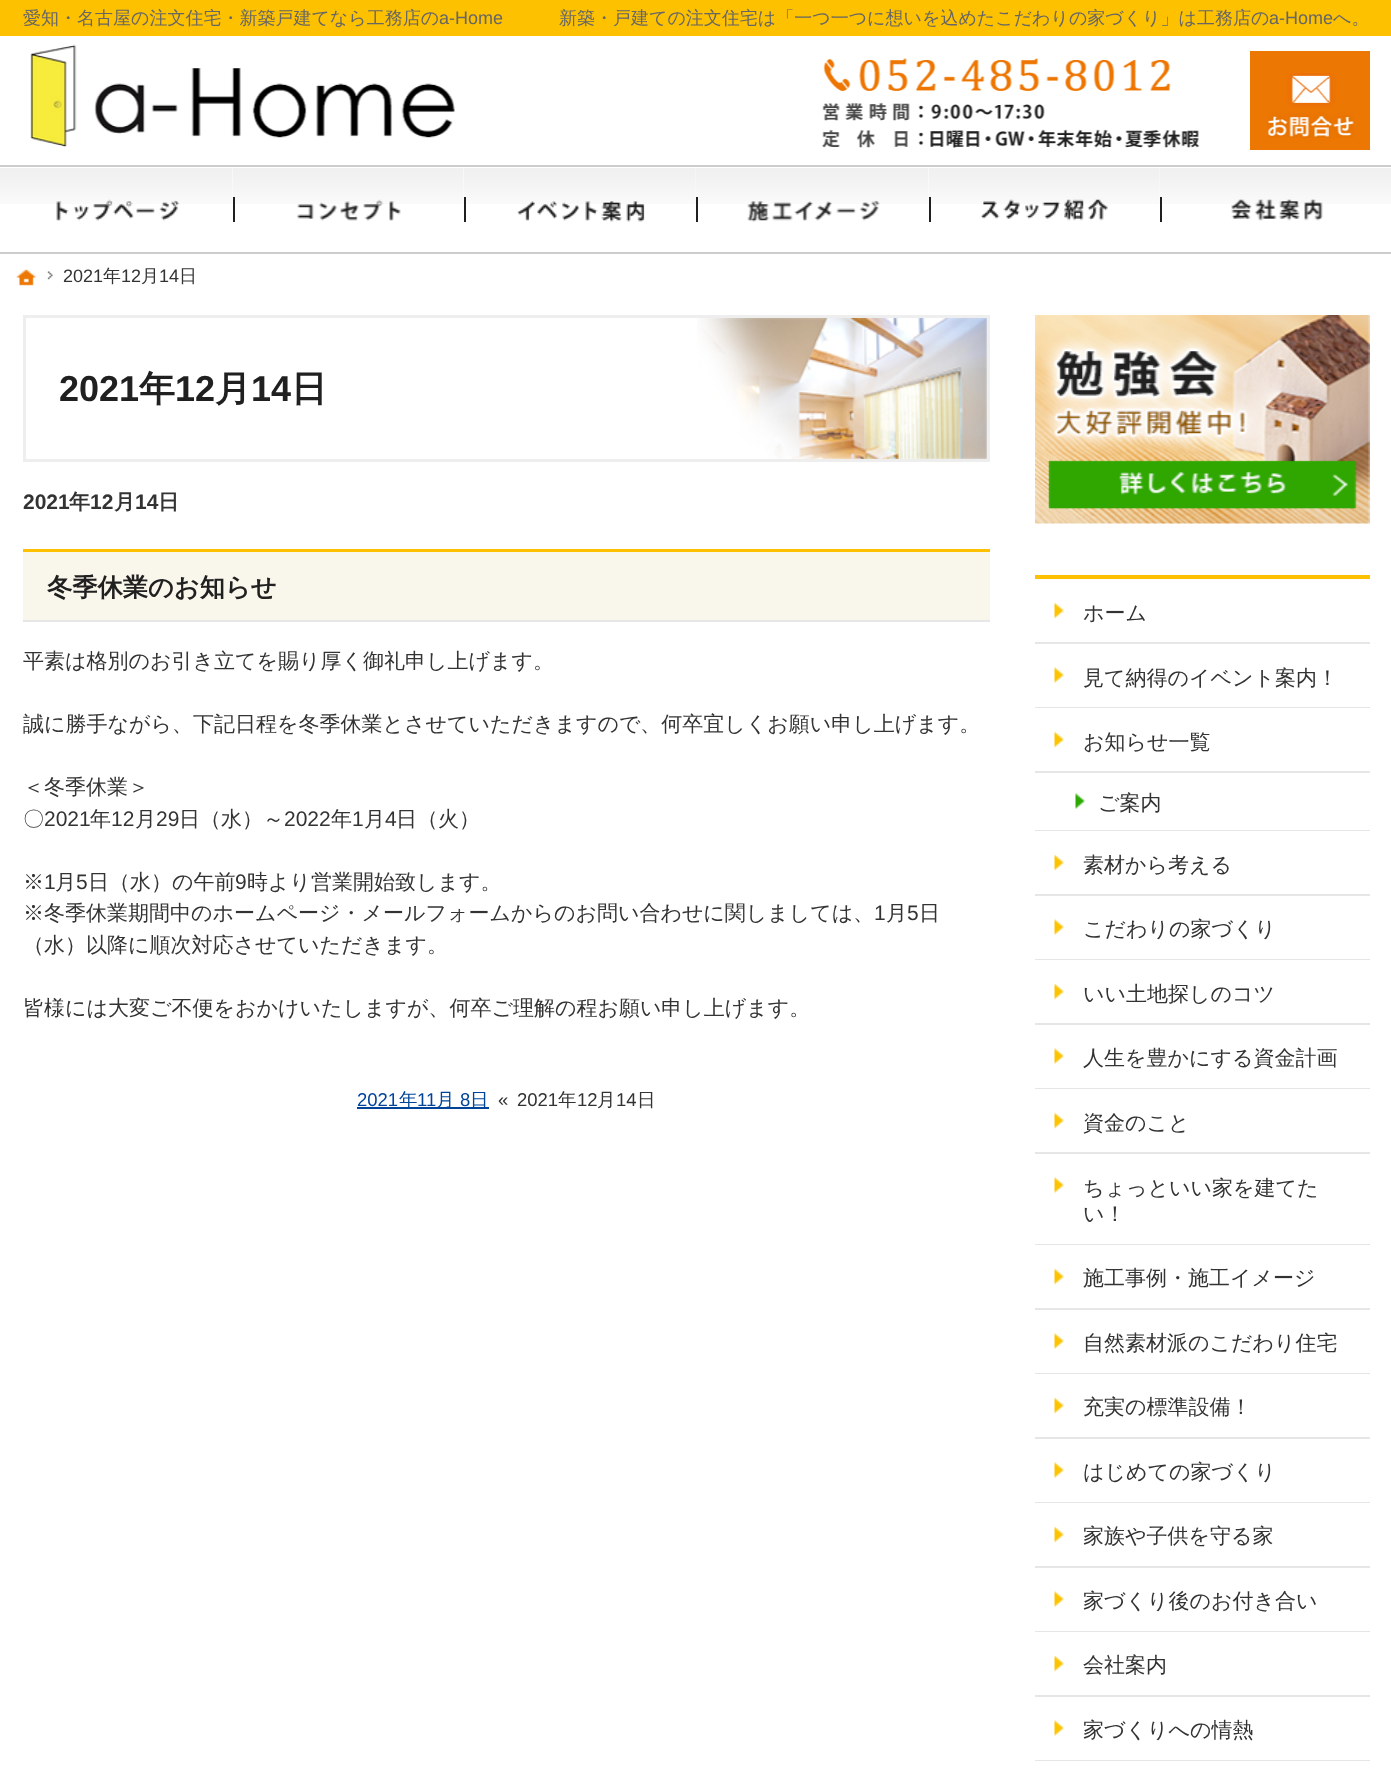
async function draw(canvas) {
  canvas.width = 1391
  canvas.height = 1779
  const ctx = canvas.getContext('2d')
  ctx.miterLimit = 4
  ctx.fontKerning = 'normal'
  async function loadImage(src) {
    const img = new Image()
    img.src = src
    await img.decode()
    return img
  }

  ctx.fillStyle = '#fff'
  ctx.fillRect(0, 0, 1391, 1779)
  ctx.fillStyle = '#fdc100'
  ctx.fillRect(0, 0, 1391, 36)
  ctx.font = '500 18px WenQuanYi Zen Hei'
  ctx.fillStyle = '#666'
  ctx.fillText('愛知・名古屋の注文住宅・新築戸建てなら工務店の', 23, 24)
  ctx.font = '18px Liberation Sans'
  ctx.fillText('a-Home', 439, 24)
  ctx.font = '500 18px WenQuanYi Zen Hei'
  ctx.fillText('新築・戸建ての注文住宅は「一つ一つに想いを込めたこだわりの家づくり」は工務店の', 559, 24)
  ctx.font = '18px Liberation Sans'
  ctx.fillText('a-Home', 1269, 24)
  ctx.font = '500 18px WenQuanYi Zen Hei'
  ctx.fillText('へ。', 1333, 24)
  ctx.drawImage(await loadImage('image0.png'), 30, 44, 425, 104)
  ctx.strokeStyle = '#eee'
  ctx.lineWidth = 3
  ctx.strokeRect(24.5, 316.5, 964, 144)
  ctx.font = 'bold 36px Liberation Sans'
  ctx.fillStyle = '#202020'
  ctx.fillText('2021', 59, 401)
  ctx.font = 'bold 36px WenQuanYi Zen Hei'
  ctx.fillText('年', 139, 401)
  ctx.font = 'bold 36px Liberation Sans'
  ctx.fillText('12', 175, 401)
  ctx.font = 'bold 36px WenQuanYi Zen Hei'
  ctx.fillText('月', 215, 401)
  ctx.font = 'bold 36px Liberation Sans'
  ctx.fillText('14', 251, 401)
  ctx.font = 'bold 36px WenQuanYi Zen Hei'
  ctx.fillText('日', 291, 401)
  ctx.drawImage(await loadImage('image1.png'), 697, 318, 290, 141)
  ctx.font = 'bold 21px Liberation Sans'
  ctx.fillStyle = '#333'
  ctx.fillText('2021', 23, 509)
  ctx.font = 'bold 21px WenQuanYi Zen Hei'
  ctx.fillText('年', 69, 509)
  ctx.font = 'bold 21px Liberation Sans'
  ctx.fillText('12', 90, 509)
  ctx.font = 'bold 21px WenQuanYi Zen Hei'
  ctx.fillText('月', 114, 509)
  ctx.font = 'bold 21px Liberation Sans'
  ctx.fillText('14', 135, 509)
  ctx.font = 'bold 21px WenQuanYi Zen Hei'
  ctx.fillText('日', 158, 509)
  ctx.fillStyle = '#f9f6eb'
  ctx.fillRect(23, 552, 967, 68)
  ctx.fillStyle = '#fdc100'
  ctx.fillRect(23, 549, 967, 3)
  ctx.fillStyle = '#e7e7e7'
  ctx.fillRect(23, 620, 967, 2)
  ctx.font = 'bold 25.25px WenQuanYi Zen Hei'
  ctx.fillStyle = '#202020'
  ctx.fillText('冬季休業のお知らせ', 47, 596)
  ctx.font = '500 21px WenQuanYi Zen Hei'
  ctx.fillStyle = '#333'
  ctx.fillText('平素は格別のお引き立てを賜り厚く御礼申し上げます。', 23, 668)
  ctx.fillText('誠に勝手ながら、下記日程を冬季休業とさせていただきますので、何卒宜しくお願い申し上げます。', 23, 731)
  ctx.fillText('＜冬季休業＞', 23, 794)
  ctx.fillText('〇', 23, 826)
  ctx.font = '21px Liberation Sans'
  ctx.fillText('2021', 44, 826)
  ctx.font = '500 21px WenQuanYi Zen Hei'
  ctx.fillText('年', 90, 826)
  ctx.font = '21px Liberation Sans'
  ctx.fillText('12', 111, 826)
  ctx.font = '500 21px WenQuanYi Zen Hei'
  ctx.fillText('月', 135, 826)
  ctx.font = '21px Liberation Sans'
  ctx.fillText('29', 156, 826)
  ctx.font = '500 21px WenQuanYi Zen Hei'
  ctx.fillText('日（水）～', 179, 826)
  ctx.font = '21px Liberation Sans'
  ctx.fillText('2022', 284, 826)
  ctx.font = '500 21px WenQuanYi Zen Hei'
  ctx.fillText('年', 331, 826)
  ctx.font = '21px Liberation Sans'
  ctx.fillText('1', 352, 826)
  ctx.font = '500 21px WenQuanYi Zen Hei'
  ctx.fillText('月', 364, 826)
  ctx.font = '21px Liberation Sans'
  ctx.fillText('4', 385, 826)
  ctx.font = '500 21px WenQuanYi Zen Hei'
  ctx.fillText('日（火）', 396, 826)
  ctx.fillText('※', 23, 889)
  ctx.font = '21px Liberation Sans'
  ctx.fillText('1', 44, 889)
  ctx.font = '500 21px WenQuanYi Zen Hei'
  ctx.fillText('月', 55, 889)
  ctx.font = '21px Liberation Sans'
  ctx.fillText('5', 76, 889)
  ctx.font = '500 21px WenQuanYi Zen Hei'
  ctx.fillText('日（水）の午前', 88, 889)
  ctx.font = '21px Liberation Sans'
  ctx.fillText('9', 235, 889)
  ctx.font = '500 21px WenQuanYi Zen Hei'
  ctx.fillText('時より営業開始致します。', 247, 889)
  ctx.fillText('※冬季休業期間中のホームページ・メールフォームからのお問い合わせに関しましては、', 23, 920)
  ctx.font = '21px Liberation Sans'
  ctx.fillText('1', 874, 920)
  ctx.font = '500 21px WenQuanYi Zen Hei'
  ctx.fillText('月', 886, 920)
  ctx.font = '21px Liberation Sans'
  ctx.fillText('5', 907, 920)
  ctx.font = '500 21px WenQuanYi Zen Hei'
  ctx.fillText('日', 919, 920)
  ctx.fillText('（水）以降に順次対応させていただきます。', 23, 952)
  ctx.fillText('皆様には大変ご不便をおかけいたしますが、何卒ご理解の程お願い申し上げます。', 23, 1015)
  ctx.font = '18.5px Liberation Sans'
  ctx.fillStyle = '#049'
  ctx.fillText('2021', 357, 1106)
  ctx.fillRect(357, 1107, 132, 2)
  ctx.font = '500 18.5px WenQuanYi Zen Hei'
  ctx.fillText('年', 399, 1106)
  ctx.font = '18.5px Liberation Sans'
  ctx.fillText('11', 417, 1106)
  ctx.font = '500 18.5px WenQuanYi Zen Hei'
  ctx.fillText('月', 436, 1106)
  ctx.font = '18.5px Liberation Sans'
  ctx.fillText('8', 460, 1106)
  ctx.font = '500 18.5px WenQuanYi Zen Hei'
  ctx.fillText('日', 470, 1106)
  ctx.font = '18.5px Liberation Sans'
  ctx.fillStyle = '#333'
  ctx.fillText('«', 498, 1106)
  ctx.fillText('2021', 517, 1106)
  ctx.font = '500 18.5px WenQuanYi Zen Hei'
  ctx.fillText('年', 558, 1106)
  ctx.font = '18.5px Liberation Sans'
  ctx.fillText('12', 577, 1106)
  ctx.font = '500 18.5px WenQuanYi Zen Hei'
  ctx.fillText('月', 597, 1106)
  ctx.font = '18.5px Liberation Sans'
  ctx.fillText('14', 616, 1106)
  ctx.font = '500 18.5px WenQuanYi Zen Hei'
  ctx.fillText('日', 637, 1106)
  ctx.drawImage(await loadImage('image2.png'), 1035, 315, 335, 209)
  ctx.fillStyle = '#fdc100'
  ctx.fillRect(1035, 575, 335, 4)
  ctx.drawImage(await loadImage('image3.png'), 1054, 602, 10, 17)
  ctx.font = '500 21px WenQuanYi Zen Hei'
  ctx.fillStyle = '#333'
  ctx.fillText('ホーム', 1083, 620)
  ctx.fillStyle = '#e6e6e6'
  ctx.fillRect(1035, 642, 335, 2)
  ctx.drawImage(await loadImage('image4.png'), 1054, 667, 10, 16)
  ctx.fillStyle = '#333'
  ctx.fillText('見て納得のイベント案内！', 1083, 685)
  ctx.fillStyle = '#e6e6e6'
  ctx.fillRect(1035, 707, 335, 1)
  ctx.drawImage(await loadImage('image3.png'), 1054, 731, 10, 17)
  ctx.fillStyle = '#333'
  ctx.fillText('お知らせ一覧', 1083, 749)
  ctx.fillStyle = '#e6e6e6'
  ctx.fillRect(1035, 771, 335, 2)
  ctx.drawImage(await loadImage('image5.png'), 1075, 793, 10, 16)
  ctx.fillStyle = '#333'
  ctx.fillText('ご案内', 1098, 810)
  ctx.fillStyle = '#e6e6e6'
  ctx.fillRect(1035, 830, 335, 1)
  ctx.drawImage(await loadImage('image3.png'), 1054, 854, 10, 17)
  ctx.fillStyle = '#333'
  ctx.fillText('素材から考える', 1083, 872)
  ctx.fillStyle = '#e6e6e6'
  ctx.fillRect(1035, 894, 335, 2)
  ctx.drawImage(await loadImage('image4.png'), 1054, 919, 10, 16)
  ctx.fillStyle = '#333'
  ctx.fillText('こだわりの家づくり', 1083, 936)
  ctx.fillStyle = '#e6e6e6'
  ctx.fillRect(1035, 959, 335, 1)
  ctx.drawImage(await loadImage('image3.png'), 1054, 983, 10, 17)
  ctx.fillStyle = '#333'
  ctx.fillText('いい土地探しのコツ', 1083, 1001)
  ctx.fillStyle = '#e6e6e6'
  ctx.fillRect(1035, 1023, 335, 2)
  ctx.drawImage(await loadImage('image4.png'), 1054, 1048, 10, 16)
  ctx.fillStyle = '#333'
  ctx.fillText('人生を豊かにする資金計画', 1083, 1065)
  ctx.fillStyle = '#e6e6e6'
  ctx.fillRect(1035, 1088, 335, 1)
  ctx.drawImage(await loadImage('image3.png'), 1054, 1112, 10, 17)
  ctx.fillStyle = '#333'
  ctx.fillText('資金のこと', 1083, 1130)
  ctx.fillStyle = '#e6e6e6'
  ctx.fillRect(1035, 1152, 335, 2)
  ctx.drawImage(await loadImage('image4.png'), 1054, 1177, 10, 16)
  ctx.fillStyle = '#333'
  ctx.fillText('ちょっといい家を建てた', 1083, 1195)
  ctx.fillText('い！', 1083, 1221)
  ctx.fillStyle = '#e6e6e6'
  ctx.fillRect(1035, 1244, 335, 1)
  ctx.drawImage(await loadImage('image3.png'), 1054, 1268, 10, 17)
  ctx.fillStyle = '#333'
  ctx.fillText('施工事例・施工イメージ', 1083, 1285)
  ctx.fillStyle = '#e6e6e6'
  ctx.fillRect(1035, 1308, 335, 2)
  ctx.drawImage(await loadImage('image4.png'), 1054, 1333, 10, 16)
  ctx.fillStyle = '#333'
  ctx.fillText('自然素材派のこだわり住宅', 1083, 1350)
  ctx.fillStyle = '#e6e6e6'
  ctx.fillRect(1035, 1373, 335, 1)
  ctx.drawImage(await loadImage('image3.png'), 1054, 1397, 10, 17)
  ctx.fillStyle = '#333'
  ctx.fillText('充実の標準設備！', 1083, 1414)
  ctx.fillStyle = '#e6e6e6'
  ctx.fillRect(1035, 1437, 335, 2)
  ctx.drawImage(await loadImage('image4.png'), 1054, 1462, 10, 16)
  ctx.fillStyle = '#333'
  ctx.fillText('はじめての家づくり', 1083, 1479)
  ctx.fillStyle = '#e6e6e6'
  ctx.fillRect(1035, 1502, 335, 1)
  ctx.drawImage(await loadImage('image3.png'), 1054, 1526, 10, 17)
  ctx.fillStyle = '#333'
  ctx.fillText('家族や子供を守る家', 1083, 1543)
  ctx.fillStyle = '#e6e6e6'
  ctx.fillRect(1035, 1566, 335, 2)
  ctx.drawImage(await loadImage('image4.png'), 1054, 1591, 10, 16)
  ctx.fillStyle = '#333'
  ctx.fillText('家づくり後のお付き合い', 1083, 1608)
  ctx.fillStyle = '#e6e6e6'
  ctx.fillRect(1035, 1631, 335, 1)
  ctx.drawImage(await loadImage('image3.png'), 1054, 1655, 10, 17)
  ctx.fillStyle = '#333'
  ctx.fillText('会社案内', 1083, 1672)
  ctx.fillStyle = '#e6e6e6'
  ctx.fillRect(1035, 1695, 335, 2)
  ctx.drawImage(await loadImage('image4.png'), 1054, 1720, 10, 16)
  ctx.fillStyle = '#333'
  ctx.fillText('家づくりへの情熱', 1083, 1737)
  ctx.fillStyle = '#e6e6e6'
  ctx.fillRect(1035, 1760, 335, 1)
  ctx.drawImage(await loadImage('image6.png'), 821, 58, 379, 90)
  ctx.fillStyle = '#ed7703'
  ctx.fillRect(1250, 51, 120, 99)
  ctx.drawImage(await loadImage('image7.png'), 1267, 73, 87, 65)
  ctx.fillStyle = '#ccc'
  ctx.fillRect(0, 165, 1391, 2)
  ctx.fillRect(0, 252, 1391, 2)
  ctx.drawImage(await loadImage('image8.png'), 0, 168, 233, 36)
  ctx.drawImage(await loadImage('image9.png'), 56, 199, 124, 22)
  ctx.drawImage(await loadImage('image10.png'), 233, 168, 231, 36)
  ctx.fillStyle = '#202020'
  ctx.fillRect(233, 197, 2, 25)
  ctx.drawImage(await loadImage('image11.png'), 296, 199, 105, 22)
  ctx.drawImage(await loadImage('image12.png'), 464, 168, 232, 36)
  ctx.fillRect(464, 197, 2, 25)
  ctx.drawImage(await loadImage('image13.png'), 517, 201, 128, 21)
  ctx.drawImage(await loadImage('image8.png'), 696, 168, 233, 36)
  ctx.fillRect(696, 197, 2, 25)
  ctx.drawImage(await loadImage('image14.png'), 747, 200, 133, 22)
  ctx.drawImage(await loadImage('image15.png'), 929, 168, 231, 36)
  ctx.fillRect(929, 197, 2, 25)
  ctx.drawImage(await loadImage('image16.png'), 980, 199, 128, 22)
  ctx.drawImage(await loadImage('image17.png'), 1159, 168, 232, 36)
  ctx.fillRect(1160, 197, 2, 25)
  ctx.drawImage(await loadImage('image18.png'), 1231, 199, 92, 22)
  ctx.drawImage(await loadImage('image19.png'), 16, 269, 21, 17)
  ctx.drawImage(await loadImage('image20.png'), 47, 271, 6, 9)
  ctx.font = '18px Liberation Sans'
  ctx.fillStyle = '#333'
  ctx.fillText('2021', 63, 282)
  ctx.font = '500 18px WenQuanYi Zen Hei'
  ctx.fillText('年', 103, 282)
  ctx.font = '18px Liberation Sans'
  ctx.fillText('12', 121, 282)
  ctx.font = '500 18px WenQuanYi Zen Hei'
  ctx.fillText('月', 141, 282)
  ctx.font = '18px Liberation Sans'
  ctx.fillText('14', 159, 282)
  ctx.font = '500 18px WenQuanYi Zen Hei'
  ctx.fillText('日', 179, 282)
}

draw(document.querySelector('canvas'))
